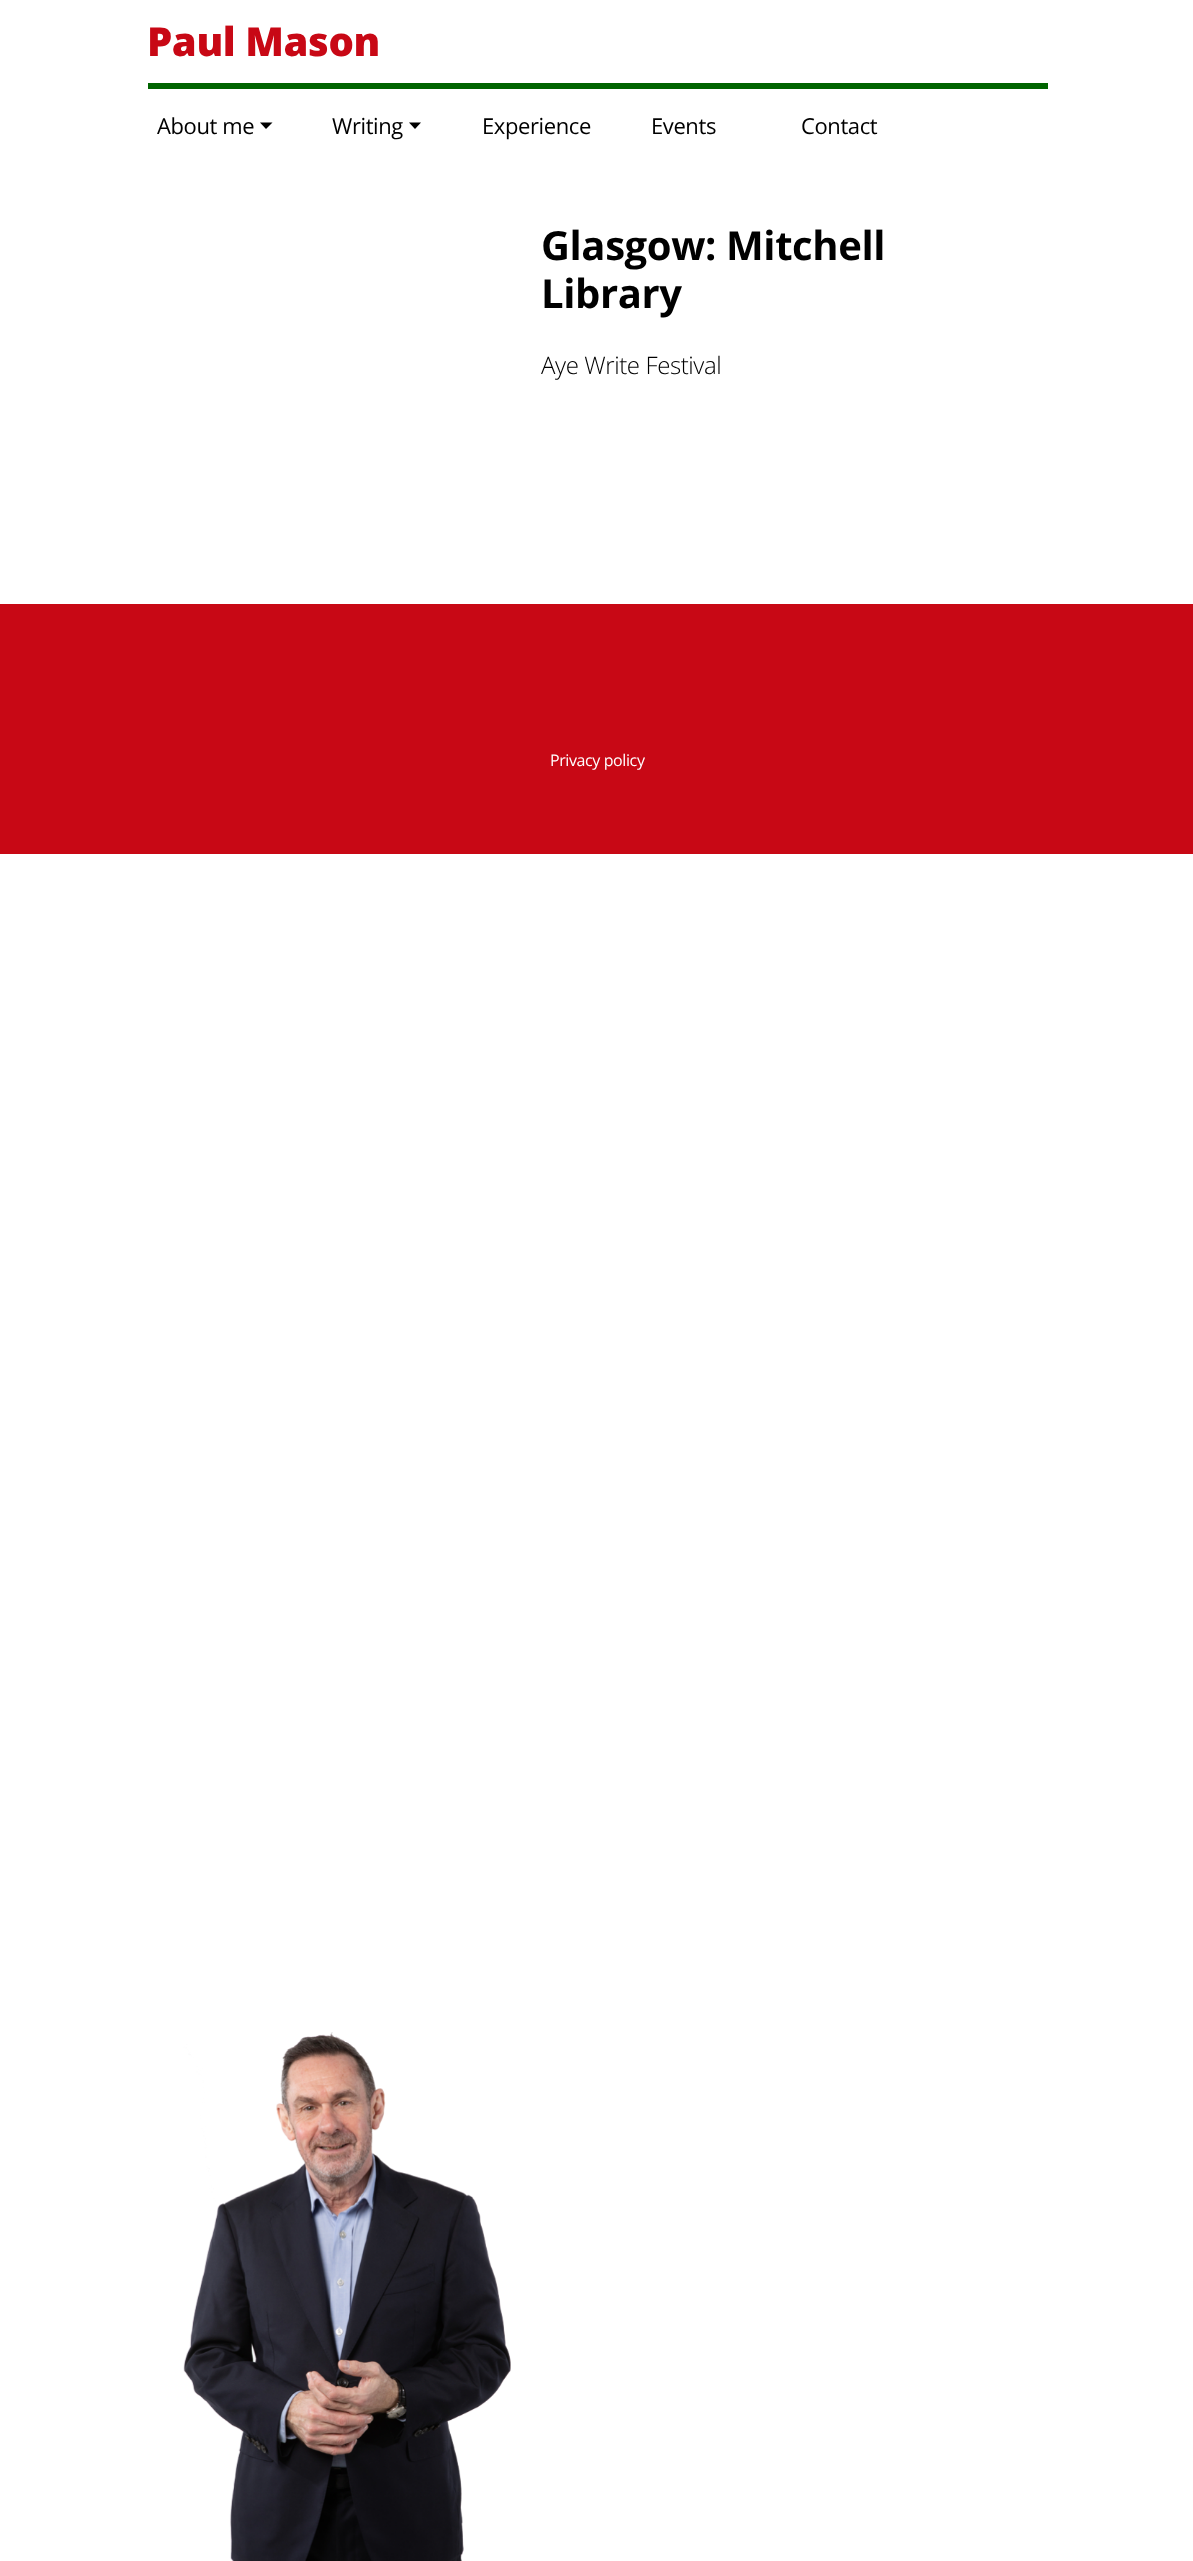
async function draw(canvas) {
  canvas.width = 1193
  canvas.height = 2561
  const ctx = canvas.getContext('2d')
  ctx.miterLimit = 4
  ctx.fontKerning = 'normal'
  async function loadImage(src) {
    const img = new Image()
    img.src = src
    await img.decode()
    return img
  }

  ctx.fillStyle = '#fff'
  ctx.fillRect(0, 0, 1193, 2561)
  ctx.fillStyle = '#006400'
  ctx.fillRect(148, 83, 900, 6)
  ctx.letterSpacing = '-0.4px'
  ctx.font = '800 40px Open Sans'
  ctx.fillStyle = '#c80815'
  ctx.fillText('Paul Mason', 147, 56)
  ctx.font = '22px Open Sans'
  ctx.fillStyle = '#000'
  ctx.fillText('About me', 157, 134)
  ctx.beginPath()
  ctx.moveTo(260, 122.5)
  ctx.lineTo(272.5, 122.5)
  ctx.lineTo(266, 129)
  ctx.closePath()
  ctx.fill()
  ctx.fillText('Writing', 332, 134)
  ctx.beginPath()
  ctx.moveTo(409, 122.5)
  ctx.lineTo(421, 122.5)
  ctx.lineTo(415, 129)
  ctx.closePath()
  ctx.fill()
  ctx.fillText('Experience', 482, 134)
  ctx.fillText('Events', 651, 134)
  ctx.fillText('Contact', 801, 134)
  ctx.font = 'bold 40px Open Sans'
  ctx.fillText('Glasgow: Mitchell', 541, 260)
  ctx.fillText('Library', 541, 308)
  ctx.font = '300 24px Open Sans'
  ctx.fillText('Aye Write Festival', 541, 374)
  ctx.drawImage(await loadImage('image0.png'), 183, 2032, 328, 529)
  ctx.fillStyle = '#c80815'
  ctx.fillRect(0, 604, 1193, 250)
  ctx.font = '16px Open Sans'
  ctx.fillStyle = '#fff'
  ctx.fillText('Privacy policy', 550, 766)
}

draw(document.querySelector('canvas'))
